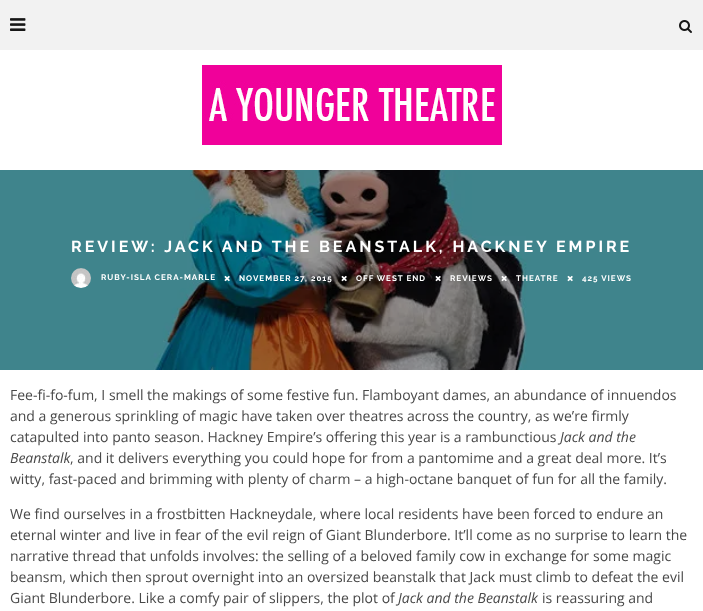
async function draw(canvas) {
  canvas.width = 703
  canvas.height = 611
  const ctx = canvas.getContext('2d')
  ctx.miterLimit = 4
  ctx.fontKerning = 'normal'
  async function loadImage(src) {
    const img = new Image()
    img.src = src
    await img.decode()
    return img
  }

  ctx.fillStyle = '#fff'
  ctx.fillRect(0, 0, 703, 611)
  ctx.fillStyle = '#f2f2f2'
  ctx.fillRect(0, 0, 703, 50)
  ctx.drawImage(await loadImage('image0.png'), 10, 18, 16, 13)
  ctx.drawImage(await loadImage('image1.png'), 679, 20, 13, 13)
  ctx.drawImage(await loadImage('image2.png'), 202, 65, 300, 80)
  ctx.fillStyle = '#000'
  ctx.fillRect(0, 170, 703, 200)
  ctx.drawImage(await loadImage('image3.png'), 0, 170, 703, 200)
  ctx.letterSpacing = '3px'
  ctx.font = 'bold 16px Raleway'
  ctx.fillStyle = '#fff'
  ctx.fillText('REVIEW: JACK AND THE BEANSTALK, HACKNEY EMPIRE', 71, 252)
  ctx.drawImage(await loadImage('image4.png'), 71, 268, 20, 20)
  ctx.letterSpacing = '1px'
  ctx.font = 'bold 8px Raleway'
  ctx.fillText('RUBY-ISLA CERA-MARLE', 101, 280)
  ctx.drawImage(await loadImage('image5.png'), 224, 275, 6, 7)
  ctx.fillText('NOVEMBER 27, 2015', 239, 281)
  ctx.drawImage(await loadImage('image6.png'), 341, 275, 6, 7)
  ctx.fillText('OFF WEST END', 356, 281)
  ctx.drawImage(await loadImage('image7.png'), 435, 275, 6, 7)
  ctx.fillText('REVIEWS', 450, 281)
  ctx.drawImage(await loadImage('image8.png'), 501, 275, 6, 7)
  ctx.fillText('THEATRE', 516, 281)
  ctx.drawImage(await loadImage('image9.png'), 567, 275, 6, 7)
  ctx.fillText('425 VIEWS', 582, 281)
  ctx.letterSpacing = '0px'
  ctx.font = '14px Open Sans'
  ctx.fillStyle = '#484848'
  ctx.fillText('Fee-fi-fo-fum, I smell the makings of some festive fun. Flamboyant dames, an abundance of innuendos', 10, 400)
  ctx.fillText('and a generous sprinkling of magic have taken over theatres across the country, as we’re firmly', 10, 421)
  ctx.fillText('catapulted into panto season. Hackney Empire’s offering this year is a rambunctious', 10, 442)
  ctx.font = 'italic 14px Open Sans'
  ctx.fillText('Jack and the', 560, 442)
  ctx.fillText('Beanstalk', 10, 463)
  ctx.font = '14px Open Sans'
  ctx.fillText(', and it delivers everything you could hope for from a pantomime and a great deal more. It’s', 70, 463)
  ctx.fillText('witty, fast-paced and brimming with plenty of charm – a high-octane banquet of fun for all the family.', 10, 484)
  ctx.fillText('We find ourselves in a frostbitten Hackneydale, where local residents have been forced to endure an', 10, 519)
  ctx.fillText('eternal winter and live in fear of the evil reign of Giant Blunderbore. It’ll come as no surprise to learn the', 10, 540)
  ctx.fillText('narrative thread that unfolds involves: the selling of a beloved family cow in exchange for some magic', 10, 561)
  ctx.fillText('beansm, which then sprout overnight into an oversized beanstalk that Jack must climb to defeat the evil', 10, 582)
  ctx.fillText('Giant Blunderbore. Like a comfy pair of slippers, the plot of', 10, 603)
  ctx.font = 'italic 14px Open Sans'
  ctx.fillText('Jack and the Beanstalk', 398, 603)
  ctx.font = '14px Open Sans'
  ctx.fillText('is reassuring and', 542, 603)
}

draw(document.querySelector('canvas'))
